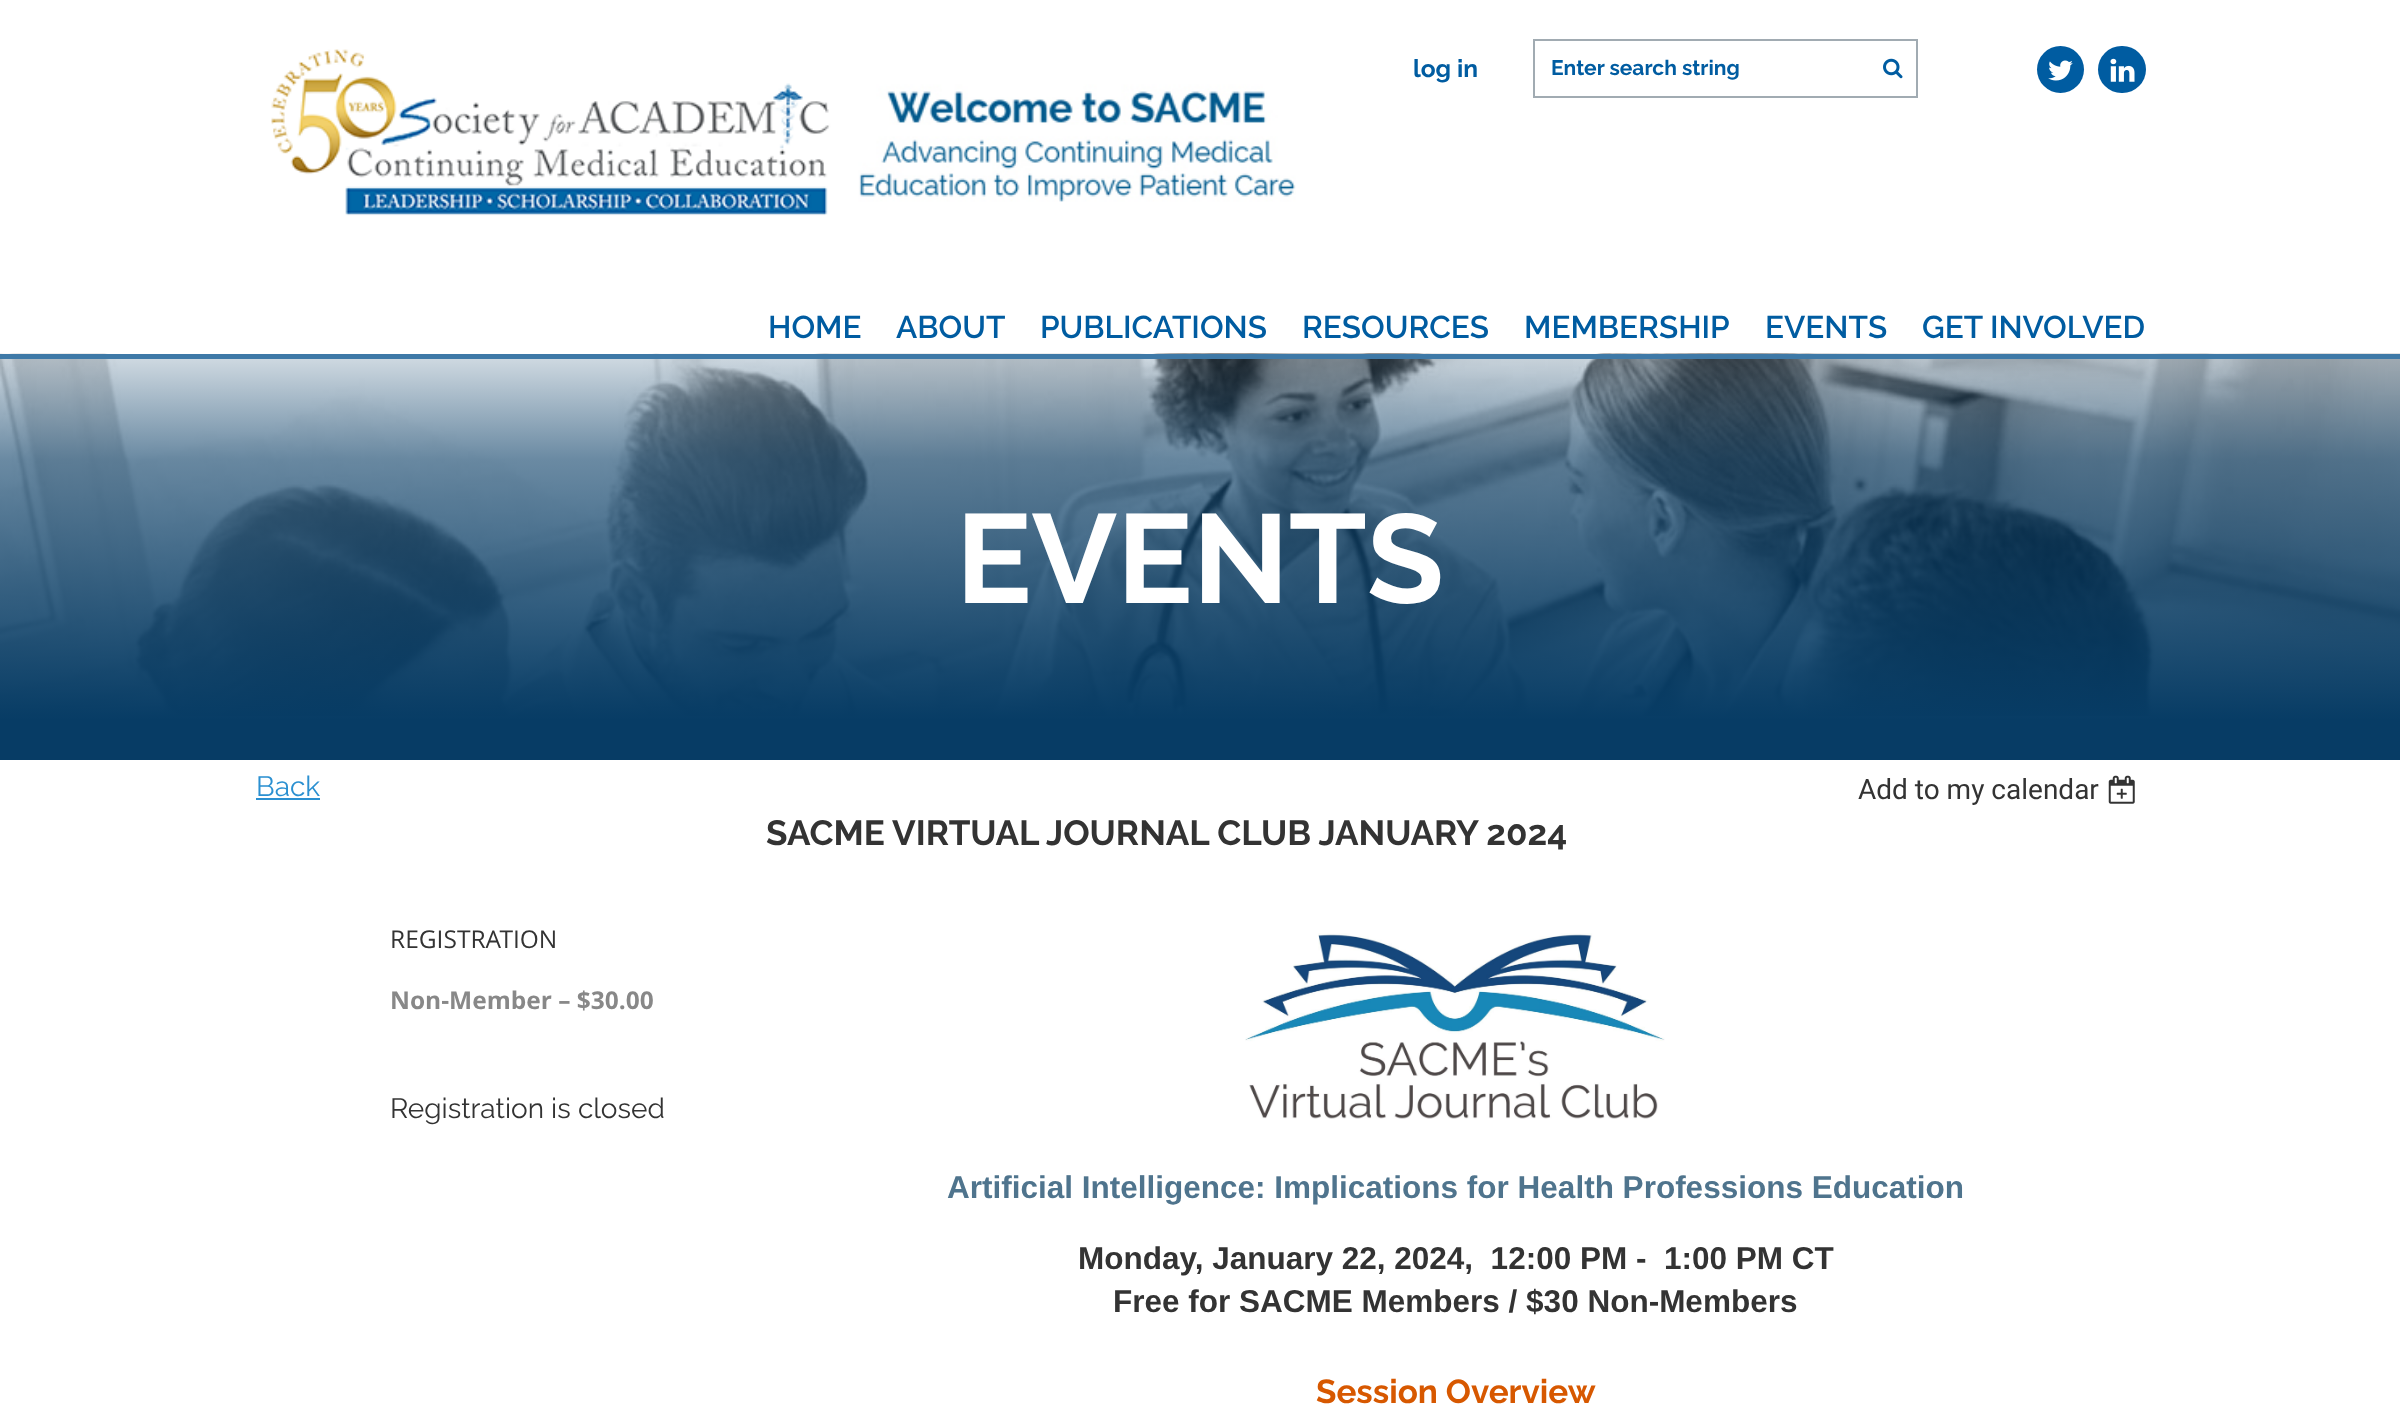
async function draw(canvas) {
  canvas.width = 2400
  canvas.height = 1420
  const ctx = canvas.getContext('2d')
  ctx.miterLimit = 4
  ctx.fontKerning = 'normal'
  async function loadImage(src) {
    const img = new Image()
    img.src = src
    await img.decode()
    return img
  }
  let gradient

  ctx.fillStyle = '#fff'
  ctx.fillRect(0, 0, 2400, 1420)
  ctx.drawImage(await loadImage('image0.png'), 271, 49, 1025, 167)
  ctx.font = 'bold 24.5px Raleway'
  ctx.fillStyle = '#005ca1'
  ctx.fillText('log in', 1413, 77)
  ctx.strokeStyle = '#a1abb2'
  ctx.lineWidth = 2
  ctx.strokeRect(1534, 40, 383, 57)
  ctx.font = 'bold 21px Raleway'
  ctx.fillText('Enter search string', 1551, 75)
  ctx.drawImage(await loadImage('image1.png'), 1883, 58, 20, 21)
  ctx.beginPath()
  ctx.arc(2060.5, 69.5, 23.5, 0, 2 * Math.PI)
  ctx.fill()
  ctx.drawImage(await loadImage('image2.png'), 2048, 60, 25, 21)
  ctx.beginPath()
  ctx.roundRect(2098, 46, 48, 47, 23.5)
  ctx.fill()
  ctx.drawImage(await loadImage('image3.png'), 2110, 58, 25, 24)
  ctx.font = '600 31.5px Raleway'
  ctx.fillText('HOME', 768, 338)
  ctx.fillText('ABOUT', 896, 338)
  ctx.fillText('PUBLICATIONS', 1040, 338)
  ctx.fillText('RESOURCES', 1302, 338)
  ctx.fillText('MEMBERSHIP', 1524, 338)
  ctx.fillText('EVENTS', 1765, 338)
  ctx.fillText('GET INVOLVED', 1922, 338)
  ctx.drawImage(await loadImage('image4.png'), 0, 353, 2400, 363)
  ctx.fillStyle = '#3e79a7'
  ctx.fillRect(0, 354, 2400, 5)
  gradient = ctx.createLinearGradient(1201, 359, 1201, 760)
  gradient.addColorStop(0, '#073c6533')
  gradient.addColorStop(0.25, '#073c6599')
  gradient.addColorStop(0.9, '#073c65')
  gradient.addColorStop(1, '#073c65')
  ctx.fillStyle = gradient
  ctx.fillRect(0, 359, 2400, 401)
  ctx.font = 'bold 126px Raleway'
  ctx.fillStyle = '#fff'
  ctx.fillText('EVENTS', 956, 603)
  ctx.font = '28px Raleway'
  ctx.fillStyle = '#2b90d1'
  ctx.fillText('Back', 256, 796)
  ctx.fillRect(256, 798, 64, 2)
  ctx.font = '28px Roboto'
  ctx.fillStyle = '#333'
  ctx.fillText('Add to my calendar', 1858, 799)
  ctx.drawImage(await loadImage('image5.png'), 2108, 775, 27, 29)
  ctx.font = 'bold 35px Raleway'
  ctx.fillText('SACME VIRTUAL JOURNAL CLUB JANUARY 2024', 766, 845)
  ctx.font = '24.5px Open Sans'
  ctx.fillText('REGISTRATION', 390, 948)
  ctx.font = 'bold 24.5px Open Sans'
  ctx.fillStyle = '#888'
  ctx.fillText('Non-Member – $30.00', 390, 1009)
  ctx.font = '28px Raleway'
  ctx.fillStyle = '#333'
  ctx.fillText('Registration is closed', 390, 1118)
  ctx.drawImage(await loadImage('image6.png'), 1245, 933, 420, 186)
  ctx.font = 'bold 31.5px Liberation Sans'
  ctx.fillStyle = '#4f748d'
  ctx.fillText('Artificial Intelligence: Implications for Health Professions Education', 947, 1198)
  ctx.fillStyle = '#333'
  ctx.fillText('Monday, January 22, 2024,  12:00 PM -  1:00 PM CT', 1078, 1269)
  ctx.fillText('Free for SACME Members / $30 Non-Members', 1113, 1312)
  ctx.font = 'bold 33.25px Raleway'
  ctx.fillStyle = '#d75800'
  ctx.fillText('Session Overview', 1316, 1403)
}

draw(document.querySelector('canvas'))
